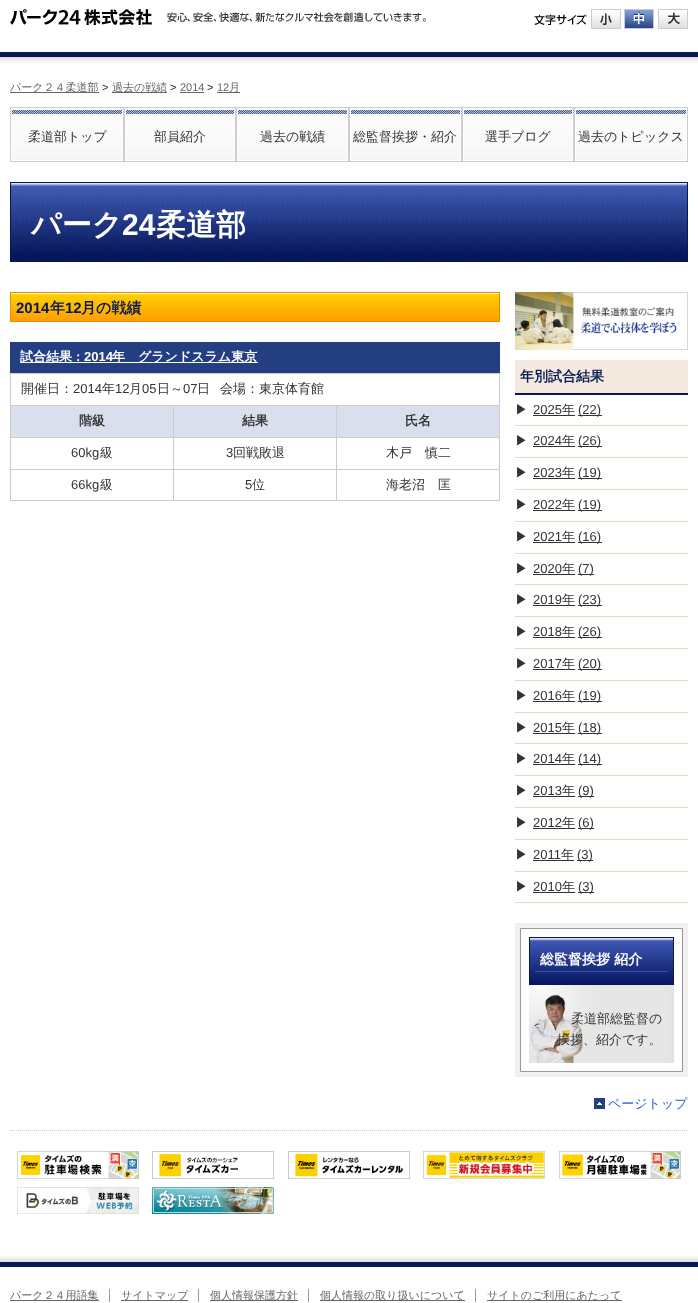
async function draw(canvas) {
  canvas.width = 698
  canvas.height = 1303
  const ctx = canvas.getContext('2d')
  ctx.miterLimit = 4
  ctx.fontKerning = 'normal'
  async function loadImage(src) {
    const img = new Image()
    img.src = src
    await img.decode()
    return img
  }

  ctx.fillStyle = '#fff'
  ctx.fillRect(0, 0, 698, 1303)
  ctx.drawImage(await loadImage('image0.png'), 0, 52, 698, 11)
  ctx.drawImage(await loadImage('image1.png'), 10, 9, 142, 16)
  ctx.drawImage(await loadImage('image2.png'), 167, 12, 259, 10)
  ctx.drawImage(await loadImage('image3.png'), 534, 14, 53, 11)
  ctx.drawImage(await loadImage('image4.png'), 591, 9, 30, 20)
  ctx.drawImage(await loadImage('image5.png'), 624, 9, 30, 20)
  ctx.drawImage(await loadImage('image6.png'), 658, 9, 30, 20)
  ctx.fillStyle = '#666'
  ctx.fillRect(10, 92, 89, 1)
  ctx.font = '500 11px WenQuanYi Zen Hei'
  ctx.fillText('パーク２４柔道部', 10, 91)
  ctx.font = '11px Liberation Sans'
  ctx.fillStyle = '#333'
  ctx.fillText('>', 102, 91)
  ctx.fillStyle = '#666'
  ctx.fillRect(112, 92, 55, 1)
  ctx.font = '500 11px WenQuanYi Zen Hei'
  ctx.fillText('過去の戦績', 112, 91)
  ctx.font = '11px Liberation Sans'
  ctx.fillStyle = '#333'
  ctx.fillText('>', 170, 91)
  ctx.fillStyle = '#666'
  ctx.fillText('2014', 180, 91)
  ctx.fillRect(180, 92, 24, 1)
  ctx.fillStyle = '#333'
  ctx.fillText('>', 207, 91)
  ctx.fillStyle = '#666'
  ctx.fillText('12', 217, 91)
  ctx.fillRect(217, 92, 23, 1)
  ctx.font = '500 11px WenQuanYi Zen Hei'
  ctx.fillText('月', 229, 91)
  ctx.drawImage(await loadImage('image7.png'), 12, 109, 110, 51)
  ctx.strokeStyle = '#ccc'
  ctx.strokeRect(10.5, 107.5, 113, 54)
  ctx.drawImage(await loadImage('image8.png'), 12, 110, 110, 4)
  ctx.font = '500 13px WenQuanYi Zen Hei'
  ctx.fillStyle = '#333'
  ctx.fillText('柔道部トップ', 28, 141)
  ctx.drawImage(await loadImage('image9.png'), 126, 109, 108, 51)
  ctx.strokeRect(124.5, 107.5, 111, 54)
  ctx.drawImage(await loadImage('image10.png'), 126, 110, 108, 4)
  ctx.fillText('部員紹介', 154, 141)
  ctx.drawImage(await loadImage('image11.png'), 238, 109, 109, 51)
  ctx.strokeRect(236.5, 107.5, 112, 54)
  ctx.drawImage(await loadImage('image12.png'), 238, 110, 109, 4)
  ctx.fillText('過去の戦績', 260, 141)
  ctx.drawImage(await loadImage('image11.png'), 351, 109, 109, 51)
  ctx.strokeRect(349.5, 107.5, 112, 54)
  ctx.drawImage(await loadImage('image12.png'), 351, 110, 109, 4)
  ctx.fillText('総監督挨拶・紹介', 353, 141)
  ctx.drawImage(await loadImage('image9.png'), 464, 109, 108, 51)
  ctx.strokeRect(462.5, 107.5, 111, 54)
  ctx.drawImage(await loadImage('image10.png'), 464, 110, 108, 4)
  ctx.fillText('選手ブログ', 485, 141)
  ctx.drawImage(await loadImage('image7.png'), 576, 109, 110, 51)
  ctx.strokeRect(574.5, 107.5, 113, 54)
  ctx.drawImage(await loadImage('image8.png'), 576, 110, 110, 4)
  ctx.fillText('過去のトピックス', 578, 141)
  ctx.drawImage(await loadImage('image13.png'), 11, 183, 676, 78)
  ctx.strokeStyle = '#081951'
  ctx.strokeRect(10.5, 182.5, 677, 79)
  ctx.font = 'bold 30px WenQuanYi Zen Hei'
  ctx.fillStyle = '#fff'
  ctx.fillText('パーク', 31, 235)
  ctx.font = 'bold 30px Liberation Sans'
  ctx.fillText('24', 122, 235)
  ctx.font = 'bold 30px WenQuanYi Zen Hei'
  ctx.fillText('柔道部', 156, 235)
  ctx.beginPath()
  ctx.moveTo(10, 1130.5)
  ctx.lineTo(688, 1130.5)
  ctx.strokeStyle = '#ccc'
  ctx.setLineDash([1, 1])
  ctx.stroke()
  ctx.drawImage(await loadImage('image14.png'), 11, 293, 488, 28)
  ctx.strokeStyle = '#ea8a00'
  ctx.setLineDash([])
  ctx.strokeRect(10.5, 292.5, 489, 29)
  ctx.font = 'bold 15px Liberation Sans'
  ctx.fillStyle = '#081951'
  ctx.fillText('2014', 16, 313)
  ctx.font = 'bold 15px WenQuanYi Zen Hei'
  ctx.fillText('年', 50, 313)
  ctx.font = 'bold 15px Liberation Sans'
  ctx.fillText('12', 65, 313)
  ctx.font = 'bold 15px WenQuanYi Zen Hei'
  ctx.fillText('月の戦績', 81, 313)
  ctx.fillStyle = '#233e81'
  ctx.fillRect(10, 342, 490, 31)
  ctx.fillStyle = '#fff'
  ctx.fillRect(20, 362, 238, 1)
  ctx.font = 'bold 13px WenQuanYi Zen Hei'
  ctx.fillText('試合結果', 20, 361)
  ctx.font = 'bold 13px Liberation Sans'
  ctx.fillText(': 2014', 76, 361)
  ctx.font = 'bold 13px WenQuanYi Zen Hei'
  ctx.fillText('年　グランドスラム東京', 112, 361)
  ctx.fillStyle = '#ccc'
  ctx.fillRect(10, 373, 490, 1)
  ctx.fillRect(499, 373, 1, 32)
  ctx.fillRect(10, 373, 1, 32)
  ctx.font = '500 13px WenQuanYi Zen Hei'
  ctx.fillStyle = '#333'
  ctx.fillText('開催日：', 21, 393)
  ctx.font = '13px Liberation Sans'
  ctx.fillText('2014', 73, 393)
  ctx.font = '500 13px WenQuanYi Zen Hei'
  ctx.fillText('年', 102, 393)
  ctx.font = '13px Liberation Sans'
  ctx.fillText('12', 115, 393)
  ctx.font = '500 13px WenQuanYi Zen Hei'
  ctx.fillText('月', 129, 393)
  ctx.font = '13px Liberation Sans'
  ctx.fillText('05', 142, 393)
  ctx.font = '500 13px WenQuanYi Zen Hei'
  ctx.fillText('日～', 157, 393)
  ctx.font = '13px Liberation Sans'
  ctx.fillText('07', 183, 393)
  ctx.font = '500 13px WenQuanYi Zen Hei'
  ctx.fillText('日', 197, 393)
  ctx.fillText('会場：東京体育館', 220, 393)
  ctx.fillStyle = '#dadfed'
  ctx.fillRect(11, 406, 162, 31)
  ctx.fillStyle = '#ccc'
  ctx.fillRect(336, 405, 164, 1)
  ctx.fillRect(336, 437, 164, 1)
  ctx.fillRect(336, 469, 164, 1)
  ctx.fillRect(499, 469, 1, 32)
  ctx.fillRect(336, 500, 164, 1)
  ctx.fillRect(336, 469, 1, 32)
  ctx.fillRect(173, 469, 164, 1)
  ctx.fillRect(336, 437, 1, 33)
  ctx.fillRect(173, 437, 164, 1)
  ctx.fillRect(336, 405, 1, 33)
  ctx.fillRect(173, 405, 164, 1)
  ctx.fillRect(173, 500, 164, 1)
  ctx.fillRect(173, 469, 1, 32)
  ctx.fillRect(10, 469, 164, 1)
  ctx.fillRect(173, 437, 1, 33)
  ctx.fillRect(10, 437, 164, 1)
  ctx.fillRect(173, 405, 1, 33)
  ctx.fillRect(10, 405, 164, 1)
  ctx.fillRect(10, 500, 164, 1)
  ctx.fillRect(10, 469, 1, 32)
  ctx.fillRect(10, 437, 1, 33)
  ctx.fillRect(10, 405, 1, 33)
  ctx.font = 'bold 13px WenQuanYi Zen Hei'
  ctx.fillStyle = '#333'
  ctx.fillText('階級', 79, 425)
  ctx.fillStyle = '#dadfed'
  ctx.fillRect(174, 406, 162, 31)
  ctx.fillStyle = '#333'
  ctx.fillText('結果', 242, 425)
  ctx.fillStyle = '#dadfed'
  ctx.fillRect(337, 406, 162, 31)
  ctx.fillStyle = '#ccc'
  ctx.fillRect(499, 437, 1, 33)
  ctx.fillRect(499, 405, 1, 33)
  ctx.fillStyle = '#333'
  ctx.fillText('氏名', 405, 425)
  ctx.font = '13px Liberation Sans'
  ctx.fillText('60kg', 71, 457)
  ctx.font = '500 13px WenQuanYi Zen Hei'
  ctx.fillText('級', 100, 457)
  ctx.font = '13px Liberation Sans'
  ctx.fillText('3', 226, 457)
  ctx.font = '500 13px WenQuanYi Zen Hei'
  ctx.fillText('回戦敗退', 233, 457)
  ctx.fillText('木戸　慎二', 386, 457)
  ctx.font = '13px Liberation Sans'
  ctx.fillText('66kg', 71, 489)
  ctx.font = '500 13px WenQuanYi Zen Hei'
  ctx.fillText('級', 100, 489)
  ctx.font = '13px Liberation Sans'
  ctx.fillText('5', 245, 489)
  ctx.font = '500 13px WenQuanYi Zen Hei'
  ctx.fillText('位', 252, 489)
  ctx.fillText('海老沼　匡', 386, 489)
  ctx.drawImage(await loadImage('image15.png'), 515, 292, 173, 58)
  ctx.fillStyle = '#f3e9df'
  ctx.fillRect(515, 360, 173, 33)
  ctx.fillStyle = '#091950'
  ctx.fillRect(515, 393, 173, 2)
  ctx.font = 'bold 14px WenQuanYi Zen Hei'
  ctx.fillStyle = '#081951'
  ctx.fillText('年別試合結果', 520, 381)
  ctx.fillStyle = '#ebd9bf'
  ctx.fillRect(515, 425, 173, 1)
  ctx.font = '500 13px WenQuanYi Zen Hei'
  ctx.fillStyle = '#333'
  ctx.fillText('▶︎', 515, 414)
  ctx.font = '13px Liberation Sans'
  ctx.fillText('2025', 533, 414)
  ctx.fillRect(533, 415, 42, 1)
  ctx.font = '500 13px WenQuanYi Zen Hei'
  ctx.fillText('年', 562, 414)
  ctx.fillRect(578, 415, 24, 1)
  ctx.font = '13px Liberation Sans'
  ctx.fillText('(22)', 578, 414)
  ctx.fillStyle = '#ebd9bf'
  ctx.fillRect(515, 457, 173, 1)
  ctx.font = '500 13px WenQuanYi Zen Hei'
  ctx.fillStyle = '#333'
  ctx.fillText('▶︎', 515, 445)
  ctx.font = '13px Liberation Sans'
  ctx.fillText('2024', 533, 445)
  ctx.fillRect(533, 446, 42, 1)
  ctx.font = '500 13px WenQuanYi Zen Hei'
  ctx.fillText('年', 562, 445)
  ctx.fillRect(578, 446, 24, 1)
  ctx.font = '13px Liberation Sans'
  ctx.fillText('(26)', 578, 445)
  ctx.fillStyle = '#ebd9bf'
  ctx.fillRect(515, 489, 173, 1)
  ctx.font = '500 13px WenQuanYi Zen Hei'
  ctx.fillStyle = '#333'
  ctx.fillText('▶︎', 515, 477)
  ctx.font = '13px Liberation Sans'
  ctx.fillText('2023', 533, 477)
  ctx.fillRect(533, 478, 42, 1)
  ctx.font = '500 13px WenQuanYi Zen Hei'
  ctx.fillText('年', 562, 477)
  ctx.fillRect(578, 478, 24, 1)
  ctx.font = '13px Liberation Sans'
  ctx.fillText('(19)', 578, 477)
  ctx.fillStyle = '#ebd9bf'
  ctx.fillRect(515, 521, 173, 1)
  ctx.font = '500 13px WenQuanYi Zen Hei'
  ctx.fillStyle = '#333'
  ctx.fillText('▶︎', 515, 509)
  ctx.font = '13px Liberation Sans'
  ctx.fillText('2022', 533, 509)
  ctx.fillRect(533, 510, 42, 1)
  ctx.font = '500 13px WenQuanYi Zen Hei'
  ctx.fillText('年', 562, 509)
  ctx.fillRect(578, 510, 24, 1)
  ctx.font = '13px Liberation Sans'
  ctx.fillText('(19)', 578, 509)
  ctx.fillStyle = '#ebd9bf'
  ctx.fillRect(515, 553, 173, 1)
  ctx.font = '500 13px WenQuanYi Zen Hei'
  ctx.fillStyle = '#333'
  ctx.fillText('▶︎', 515, 541)
  ctx.font = '13px Liberation Sans'
  ctx.fillText('2021', 533, 541)
  ctx.fillRect(533, 542, 42, 1)
  ctx.font = '500 13px WenQuanYi Zen Hei'
  ctx.fillText('年', 562, 541)
  ctx.fillRect(578, 542, 24, 1)
  ctx.font = '13px Liberation Sans'
  ctx.fillText('(16)', 578, 541)
  ctx.fillStyle = '#ebd9bf'
  ctx.fillRect(515, 584, 173, 1)
  ctx.font = '500 13px WenQuanYi Zen Hei'
  ctx.fillStyle = '#333'
  ctx.fillText('▶︎', 515, 573)
  ctx.font = '13px Liberation Sans'
  ctx.fillText('2020', 533, 573)
  ctx.fillRect(533, 574, 42, 1)
  ctx.font = '500 13px WenQuanYi Zen Hei'
  ctx.fillText('年', 562, 573)
  ctx.fillRect(578, 574, 16, 1)
  ctx.font = '13px Liberation Sans'
  ctx.fillText('(7)', 578, 573)
  ctx.fillStyle = '#ebd9bf'
  ctx.fillRect(515, 616, 173, 1)
  ctx.font = '500 13px WenQuanYi Zen Hei'
  ctx.fillStyle = '#333'
  ctx.fillText('▶︎', 515, 604)
  ctx.font = '13px Liberation Sans'
  ctx.fillText('2019', 533, 604)
  ctx.fillRect(533, 605, 42, 1)
  ctx.font = '500 13px WenQuanYi Zen Hei'
  ctx.fillText('年', 562, 604)
  ctx.fillRect(578, 605, 24, 1)
  ctx.font = '13px Liberation Sans'
  ctx.fillText('(23)', 578, 604)
  ctx.fillStyle = '#ebd9bf'
  ctx.fillRect(515, 648, 173, 1)
  ctx.font = '500 13px WenQuanYi Zen Hei'
  ctx.fillStyle = '#333'
  ctx.fillText('▶︎', 515, 636)
  ctx.font = '13px Liberation Sans'
  ctx.fillText('2018', 533, 636)
  ctx.fillRect(533, 637, 42, 1)
  ctx.font = '500 13px WenQuanYi Zen Hei'
  ctx.fillText('年', 562, 636)
  ctx.fillRect(578, 637, 24, 1)
  ctx.font = '13px Liberation Sans'
  ctx.fillText('(26)', 578, 636)
  ctx.fillStyle = '#ebd9bf'
  ctx.fillRect(515, 680, 173, 1)
  ctx.font = '500 13px WenQuanYi Zen Hei'
  ctx.fillStyle = '#333'
  ctx.fillText('▶︎', 515, 668)
  ctx.font = '13px Liberation Sans'
  ctx.fillText('2017', 533, 668)
  ctx.fillRect(533, 669, 42, 1)
  ctx.font = '500 13px WenQuanYi Zen Hei'
  ctx.fillText('年', 562, 668)
  ctx.fillRect(578, 669, 24, 1)
  ctx.font = '13px Liberation Sans'
  ctx.fillText('(20)', 578, 668)
  ctx.fillStyle = '#ebd9bf'
  ctx.fillRect(515, 712, 173, 1)
  ctx.font = '500 13px WenQuanYi Zen Hei'
  ctx.fillStyle = '#333'
  ctx.fillText('▶︎', 515, 700)
  ctx.font = '13px Liberation Sans'
  ctx.fillText('2016', 533, 700)
  ctx.fillRect(533, 701, 42, 1)
  ctx.font = '500 13px WenQuanYi Zen Hei'
  ctx.fillText('年', 562, 700)
  ctx.fillRect(578, 701, 24, 1)
  ctx.font = '13px Liberation Sans'
  ctx.fillText('(19)', 578, 700)
  ctx.fillStyle = '#ebd9bf'
  ctx.fillRect(515, 743, 173, 1)
  ctx.font = '500 13px WenQuanYi Zen Hei'
  ctx.fillStyle = '#333'
  ctx.fillText('▶︎', 515, 732)
  ctx.font = '13px Liberation Sans'
  ctx.fillText('2015', 533, 732)
  ctx.fillRect(533, 733, 42, 1)
  ctx.font = '500 13px WenQuanYi Zen Hei'
  ctx.fillText('年', 562, 732)
  ctx.fillRect(578, 733, 24, 1)
  ctx.font = '13px Liberation Sans'
  ctx.fillText('(18)', 578, 732)
  ctx.fillStyle = '#ebd9bf'
  ctx.fillRect(515, 775, 173, 1)
  ctx.font = '500 13px WenQuanYi Zen Hei'
  ctx.fillStyle = '#333'
  ctx.fillText('▶︎', 515, 763)
  ctx.font = '13px Liberation Sans'
  ctx.fillText('2014', 533, 763)
  ctx.fillRect(533, 764, 42, 1)
  ctx.font = '500 13px WenQuanYi Zen Hei'
  ctx.fillText('年', 562, 763)
  ctx.fillRect(578, 764, 24, 1)
  ctx.font = '13px Liberation Sans'
  ctx.fillText('(14)', 578, 763)
  ctx.fillStyle = '#ebd9bf'
  ctx.fillRect(515, 807, 173, 1)
  ctx.font = '500 13px WenQuanYi Zen Hei'
  ctx.fillStyle = '#333'
  ctx.fillText('▶︎', 515, 795)
  ctx.font = '13px Liberation Sans'
  ctx.fillText('2013', 533, 795)
  ctx.fillRect(533, 796, 42, 1)
  ctx.font = '500 13px WenQuanYi Zen Hei'
  ctx.fillText('年', 562, 795)
  ctx.fillRect(578, 796, 16, 1)
  ctx.font = '13px Liberation Sans'
  ctx.fillText('(9)', 578, 795)
  ctx.fillStyle = '#ebd9bf'
  ctx.fillRect(515, 839, 173, 1)
  ctx.font = '500 13px WenQuanYi Zen Hei'
  ctx.fillStyle = '#333'
  ctx.fillText('▶︎', 515, 827)
  ctx.font = '13px Liberation Sans'
  ctx.fillText('2012', 533, 827)
  ctx.fillRect(533, 828, 42, 1)
  ctx.font = '500 13px WenQuanYi Zen Hei'
  ctx.fillText('年', 562, 827)
  ctx.fillRect(578, 828, 16, 1)
  ctx.font = '13px Liberation Sans'
  ctx.fillText('(6)', 578, 827)
  ctx.fillStyle = '#ebd9bf'
  ctx.fillRect(515, 871, 173, 1)
  ctx.font = '500 13px WenQuanYi Zen Hei'
  ctx.fillStyle = '#333'
  ctx.fillText('▶︎', 515, 859)
  ctx.font = '13px Liberation Sans'
  ctx.fillText('2011', 533, 859)
  ctx.fillRect(533, 860, 41, 1)
  ctx.font = '500 13px WenQuanYi Zen Hei'
  ctx.fillText('年', 561, 859)
  ctx.fillRect(577, 860, 16, 1)
  ctx.font = '13px Liberation Sans'
  ctx.fillText('(3)', 577, 859)
  ctx.fillStyle = '#ebd9bf'
  ctx.fillRect(515, 902, 173, 1)
  ctx.font = '500 13px WenQuanYi Zen Hei'
  ctx.fillStyle = '#333'
  ctx.fillText('▶︎', 515, 891)
  ctx.font = '13px Liberation Sans'
  ctx.fillText('2010', 533, 891)
  ctx.fillRect(533, 892, 42, 1)
  ctx.font = '500 13px WenQuanYi Zen Hei'
  ctx.fillText('年', 562, 891)
  ctx.fillRect(578, 892, 16, 1)
  ctx.font = '13px Liberation Sans'
  ctx.fillText('(3)', 578, 891)
  ctx.fillStyle = '#f0f0f0'
  ctx.fillRect(515, 923, 173, 154)
  ctx.fillStyle = '#fff'
  ctx.beginPath()
  ctx.rect(520.5, 928.5, 162, 143)
  ctx.fill()
  ctx.strokeStyle = '#999'
  ctx.stroke()
  ctx.drawImage(await loadImage('image16.png'), 530, 938, 143, 46)
  ctx.strokeStyle = '#081951'
  ctx.strokeRect(529.5, 937.5, 144, 47)
  ctx.fillStyle = '#3753ac'
  ctx.fillRect(535, 971, 133, 1)
  ctx.font = 'bold 14px WenQuanYi Zen Hei'
  ctx.fillStyle = '#fff'
  ctx.fillText('総監督挨拶 紹介', 540, 964)
  ctx.drawImage(await loadImage('image17.png'), 529, 985, 145, 78)
  ctx.font = '500 13px WenQuanYi Zen Hei'
  ctx.fillStyle = '#333'
  ctx.fillText('柔道部総監督の', 571, 1023)
  ctx.fillText('挨拶、紹介です。', 557, 1044)
  ctx.drawImage(await loadImage('image18.png'), 594, 1098, 11, 11)
  ctx.fillStyle = '#275fd1'
  ctx.fillText('ページトップ', 608, 1108)
  ctx.drawImage(await loadImage('image19.png'), 17, 1151, 122, 28)
  ctx.drawImage(await loadImage('image20.png'), 152, 1151, 122, 28)
  ctx.drawImage(await loadImage('image21.png'), 288, 1151, 122, 28)
  ctx.drawImage(await loadImage('image22.png'), 423, 1151, 122, 28)
  ctx.drawImage(await loadImage('image23.png'), 559, 1151, 122, 28)
  ctx.drawImage(await loadImage('image24.png'), 17, 1187, 122, 27)
  ctx.drawImage(await loadImage('image25.png'), 152, 1187, 122, 27)
  ctx.drawImage(await loadImage('image26.png'), 0, 1256, 698, 11)
  ctx.fillStyle = '#999'
  ctx.fillRect(109, 1289, 1, 13)
  ctx.fillStyle = '#666'
  ctx.fillRect(10, 1300, 89, 1)
  ctx.font = '500 11px WenQuanYi Zen Hei'
  ctx.fillText('パーク２４用語集', 10, 1299)
  ctx.fillStyle = '#999'
  ctx.fillRect(198, 1289, 1, 13)
  ctx.fillStyle = '#666'
  ctx.fillRect(121, 1300, 67, 1)
  ctx.fillText('サイトマップ', 121, 1299)
  ctx.fillStyle = '#999'
  ctx.fillRect(308, 1289, 1, 13)
  ctx.fillStyle = '#666'
  ctx.fillRect(210, 1300, 88, 1)
  ctx.fillText('個人情報保護方針', 210, 1299)
  ctx.fillStyle = '#999'
  ctx.fillRect(475, 1289, 1, 13)
  ctx.fillStyle = '#666'
  ctx.fillRect(320, 1300, 145, 1)
  ctx.fillText('個人情報の取り扱いについて', 320, 1299)
  ctx.fillRect(487, 1300, 135, 1)
  ctx.fillText('サイトのご利用にあたって', 487, 1299)
}

draw(document.querySelector('canvas'))
